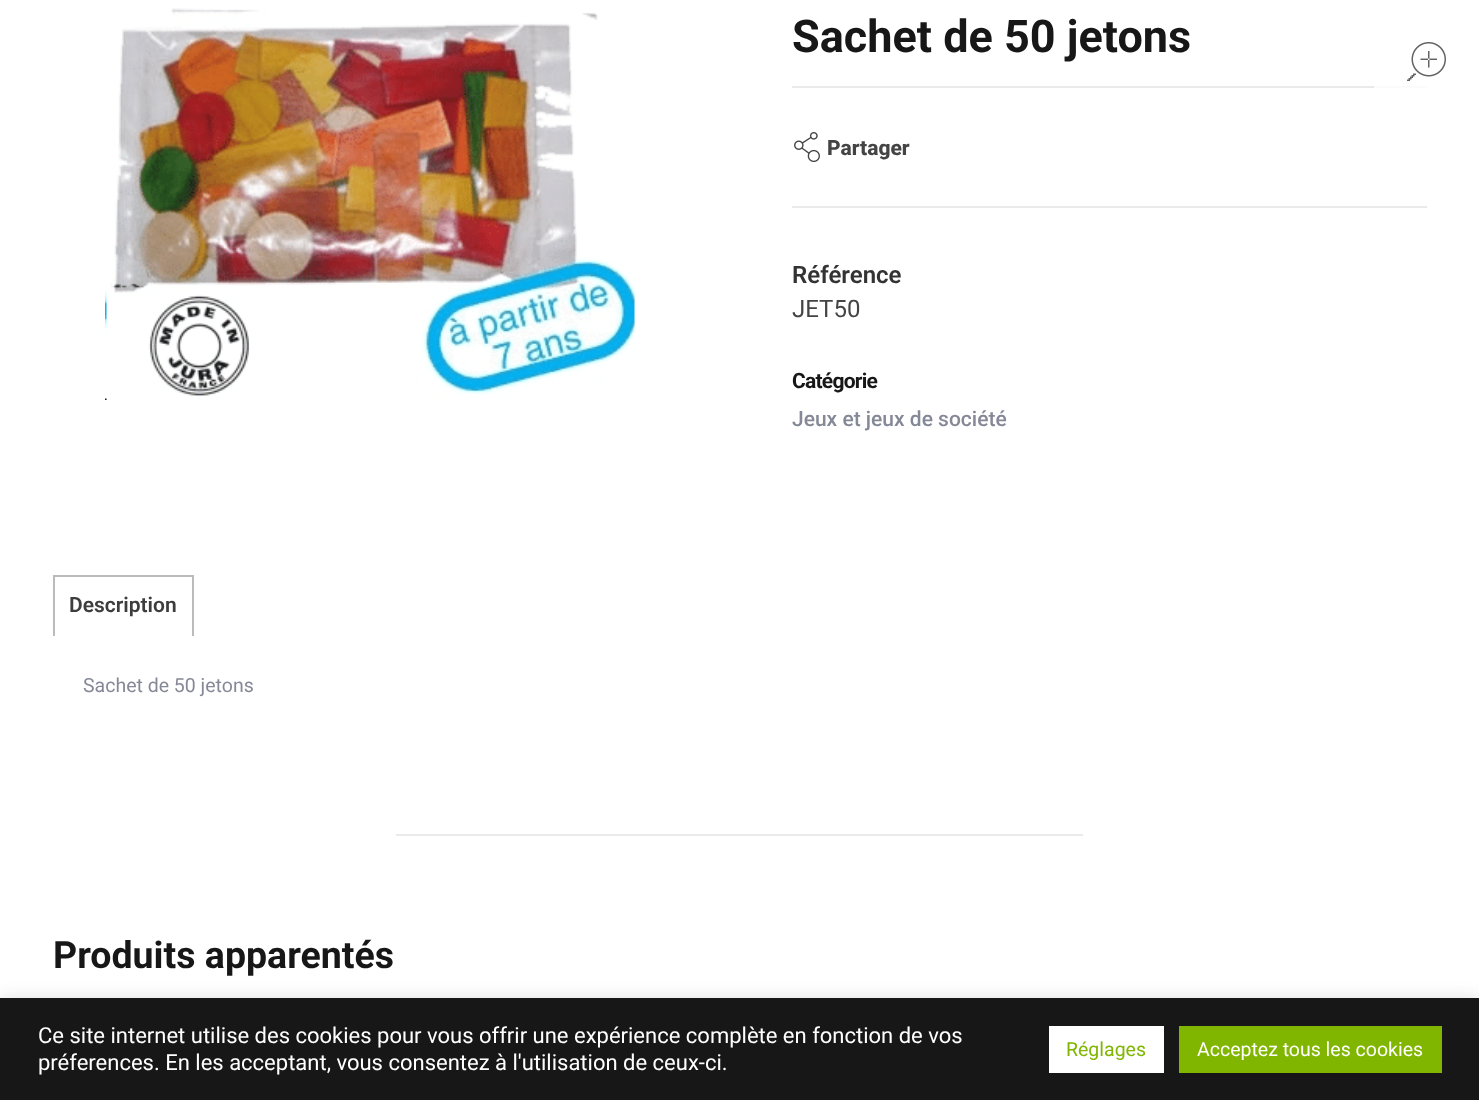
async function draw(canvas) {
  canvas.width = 1479
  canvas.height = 1100
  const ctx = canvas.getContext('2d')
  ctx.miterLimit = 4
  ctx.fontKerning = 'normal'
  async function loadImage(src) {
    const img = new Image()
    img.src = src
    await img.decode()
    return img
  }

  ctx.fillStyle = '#fff'
  ctx.fillRect(0, 0, 1479, 1100)
  ctx.drawImage(await loadImage('image0.png'), 105, 8, 530, 392)
  ctx.drawImage(await loadImage('image1.png'), 1407, 42, 39, 39)
  ctx.font = 'bold 45px Roboto'
  ctx.fillStyle = '#171717'
  ctx.fillText('Sachet de 50 jetons', 792, 52)
  ctx.fillStyle = '#eaeaea'
  ctx.fillRect(792, 86, 582, 2)
  ctx.fillStyle = '#fbfbfb'
  ctx.fillRect(1374, 86, 53, 2)
  ctx.fillStyle = '#eaeaea'
  ctx.fillRect(792, 206, 635, 2)
  ctx.drawImage(await loadImage('image2.png'), 794, 132, 26, 31)
  ctx.font = '800 21px Roboto'
  ctx.fillStyle = '#444'
  ctx.fillText('Partager', 827, 155)
  ctx.font = '600 24px Roboto'
  ctx.fillStyle = '#333'
  ctx.fillText('Référence', 792, 283)
  ctx.font = '24px Roboto'
  ctx.fillStyle = '#444'
  ctx.fillText('JET50', 792, 317)
  ctx.letterSpacing = '-0.75px'
  ctx.font = 'bold 21px Roboto'
  ctx.fillStyle = '#171717'
  ctx.fillText('Catégorie', 792, 388)
  ctx.letterSpacing = '0px'
  ctx.font = '500 21px Roboto'
  ctx.fillStyle = '#858997'
  ctx.fillText('Jeux et jeux de société', 792, 426)
  ctx.fillStyle = '#bbb'
  ctx.fillRect(53, 575, 141, 2)
  ctx.fillRect(192, 575, 2, 61)
  ctx.fillRect(53, 575, 2, 61)
  ctx.font = '600 21px Roboto'
  ctx.fillStyle = '#3d3d3d'
  ctx.fillText('Description', 69, 612)
  ctx.font = '19.5px Roboto'
  ctx.fillStyle = '#858997'
  ctx.fillText('Sachet de 50 jetons', 83, 692)
  ctx.fillStyle = '#eaeaea'
  ctx.fillRect(396, 834, 687, 2)
  ctx.font = 'bold 37.5px Roboto'
  ctx.fillStyle = '#171717'
  ctx.fillText('Produits apparentés', 53, 968)
  ctx.fillStyle = '#acabab4d'
  ctx.filter = 'blur(7.5px)'
  ctx.beginPath()
  ctx.rect(0, 996, 1479, 104)
  ctx.fill()
  ctx.filter = 'none'
  ctx.fillStyle = '#171717'
  ctx.fillRect(0, 998, 1479, 102)
  ctx.font = '22px Roboto'
  ctx.fillStyle = '#fff'
  ctx.fillText('Ce site internet utilise des cookies pour vous offrir une expérience complète en fonction de vos', 38, 1043)
  ctx.fillText('préferences. En les acceptant, vous consentez à l\'utilisation de ceux-ci.', 38, 1070)
  ctx.fillRect(1049, 1026, 115, 47)
  ctx.font = '19.5px Roboto'
  ctx.fillStyle = '#80b600'
  ctx.fillText('Réglages', 1066, 1056)
  ctx.fillRect(1179, 1026, 263, 47)
  ctx.fillStyle = '#fff'
  ctx.fillText('Acceptez tous les cookies', 1197, 1056)
}

draw(document.querySelector('canvas'))
